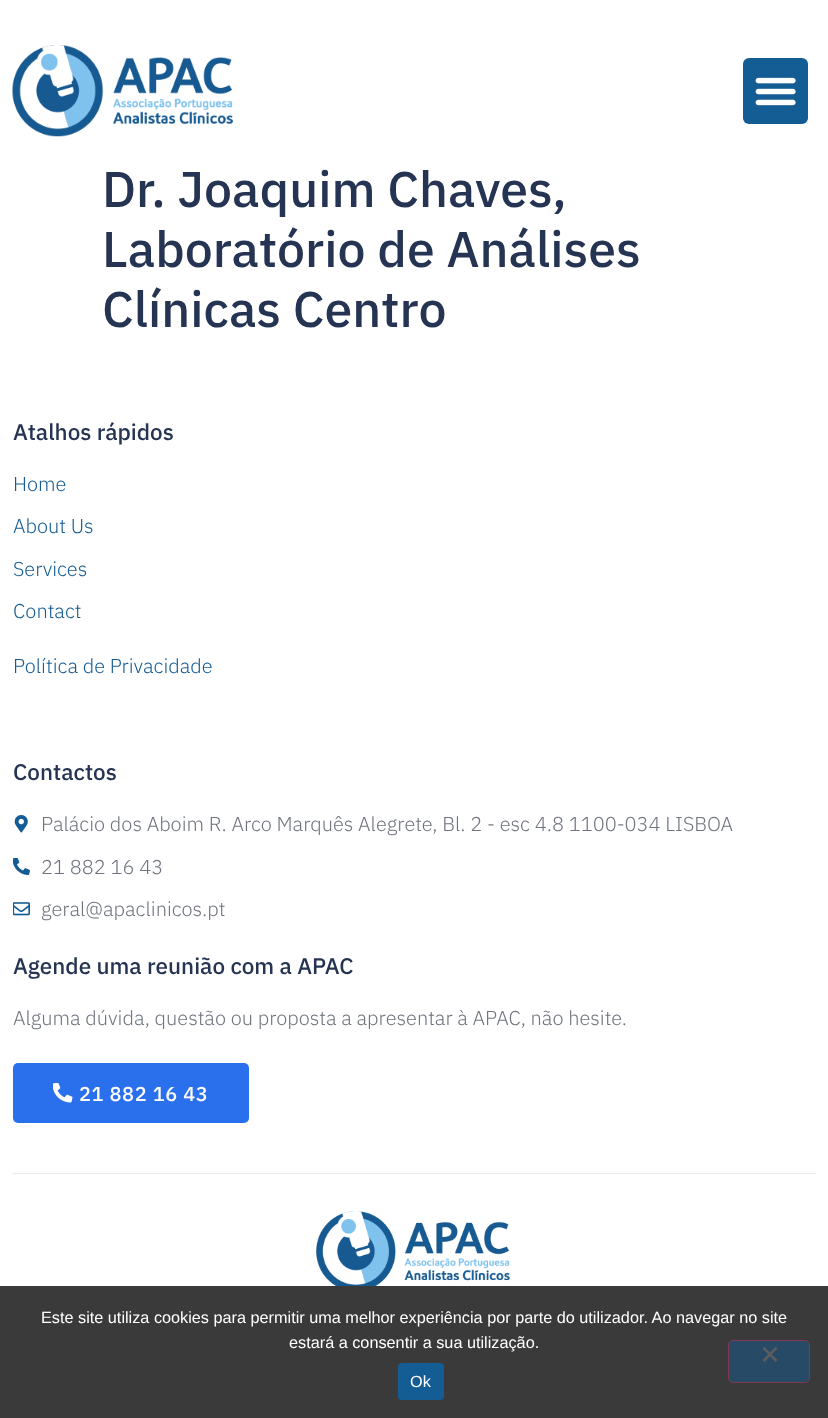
async function draw(canvas) {
  canvas.width = 828
  canvas.height = 1418
  const ctx = canvas.getContext('2d')
  ctx.miterLimit = 4
  ctx.fontKerning = 'normal'
  async function loadImage(src) {
    const img = new Image()
    img.src = src
    await img.decode()
    return img
  }

  ctx.fillStyle = '#fff'
  ctx.fillRect(0, 0, 828, 1418)
  ctx.drawImage(await loadImage('image0.png'), 12, 45, 221, 92)
  ctx.fillStyle = '#145c94'
  ctx.beginPath()
  ctx.roundRect(743, 58, 65, 66, 6)
  ctx.fill()
  ctx.drawImage(await loadImage('image1.png'), 755, 77, 41, 29)
  ctx.font = '500 50px IBM Plex Sans'
  ctx.fillStyle = '#253452'
  ctx.fillText('Dr. Joaquim Chaves,', 102, 207)
  ctx.fillText('Laboratório de Análises', 102, 267)
  ctx.fillText('Clínicas Centro', 102, 327)
  ctx.font = '500 22.5px IBM Plex Sans'
  ctx.fillText('Atalhos rápidos', 13, 440)
  ctx.font = '300 20px IBM Plex Sans'
  ctx.fillStyle = '#145c94'
  ctx.fillText('Home', 13, 491)
  ctx.fillText('About Us', 13, 533)
  ctx.fillText('Services', 13, 576)
  ctx.fillText('Contact', 13, 618)
  ctx.fillText('Política de Privacidade', 13, 673)
  ctx.font = '500 22.5px IBM Plex Sans'
  ctx.fillStyle = '#253452'
  ctx.fillText('Contactos', 13, 780)
  ctx.drawImage(await loadImage('image2.png'), 14, 815, 14, 18)
  ctx.font = '300 20px IBM Plex Sans'
  ctx.fillStyle = '#6f747e'
  ctx.fillText('Palácio dos Aboim R. Arco Marquês Alegrete, Bl. 2 - esc 4.8 1100-034 LISBOA', 41, 831)
  ctx.drawImage(await loadImage('image3.png'), 13, 858, 17, 17)
  ctx.fillText('21 882 16 43', 41, 874)
  ctx.drawImage(await loadImage('image4.png'), 13, 902, 17, 14)
  ctx.fillText('geral@apaclinicos.pt', 41, 916)
  ctx.font = '500 22.5px IBM Plex Sans'
  ctx.fillStyle = '#253452'
  ctx.fillText('Agende uma reunião com a APAC', 13, 974)
  ctx.font = '300 20px IBM Plex Sans'
  ctx.fillStyle = '#6f747e'
  ctx.fillText('Alguma dúvida, questão ou proposta a apresentar à APAC, não hesite.', 13, 1025)
  ctx.fillStyle = '#2a70ed'
  ctx.beginPath()
  ctx.roundRect(13, 1063, 236, 60, 5)
  ctx.fill()
  ctx.drawImage(await loadImage('image5.png'), 53, 1083, 20, 20)
  ctx.letterSpacing = '0.6px'
  ctx.font = '500 20px IBM Plex Sans'
  ctx.fillStyle = '#fff'
  ctx.fillText('21 882 16 43', 79, 1101)
  ctx.fillStyle = '#e7ebf0'
  ctx.fillRect(13, 1173, 803, 1)
  ctx.drawImage(await loadImage('image6.png'), 316, 1211, 194, 75)
  ctx.fillStyle = '#3a3a3a'
  ctx.fillRect(0, 1286, 828, 132)
  ctx.letterSpacing = '0px'
  ctx.font = '16.25px Liberation Sans'
  ctx.fillStyle = '#fff'
  ctx.fillText('Este site utiliza cookies para permitir uma melhor experiência por parte do utilizador. Ao navegar no site', 41, 1323)
  ctx.fillText('estará a consentir a sua utilização.', 289, 1348)
  ctx.fillStyle = '#145c94'
  ctx.beginPath()
  ctx.roundRect(398, 1363, 46, 37, 4)
  ctx.fill()
  ctx.fillStyle = '#fff'
  ctx.fillText('Ok', 410, 1387)
  ctx.fillStyle = '#274b67'
  ctx.beginPath()
  ctx.roundRect(728.5, 1340.5, 81, 42, 4.5)
  ctx.fill()
  ctx.strokeStyle = '#833750'
  ctx.stroke()
  ctx.fillStyle = '#5d5d5d'
  ctx.beginPath()
  ctx.moveTo(775.5, 1347)
  ctx.lineTo(777.5, 1348.5)
  ctx.lineTo(764.5, 1362)
  ctx.lineTo(762.5, 1360)
  ctx.closePath()
  ctx.fill()
  ctx.beginPath()
  ctx.moveTo(762.5, 1348.5)
  ctx.lineTo(764.5, 1347)
  ctx.lineTo(777.5, 1360)
  ctx.lineTo(775.5, 1362)
  ctx.closePath()
  ctx.fill()
}

draw(document.querySelector('canvas'))
